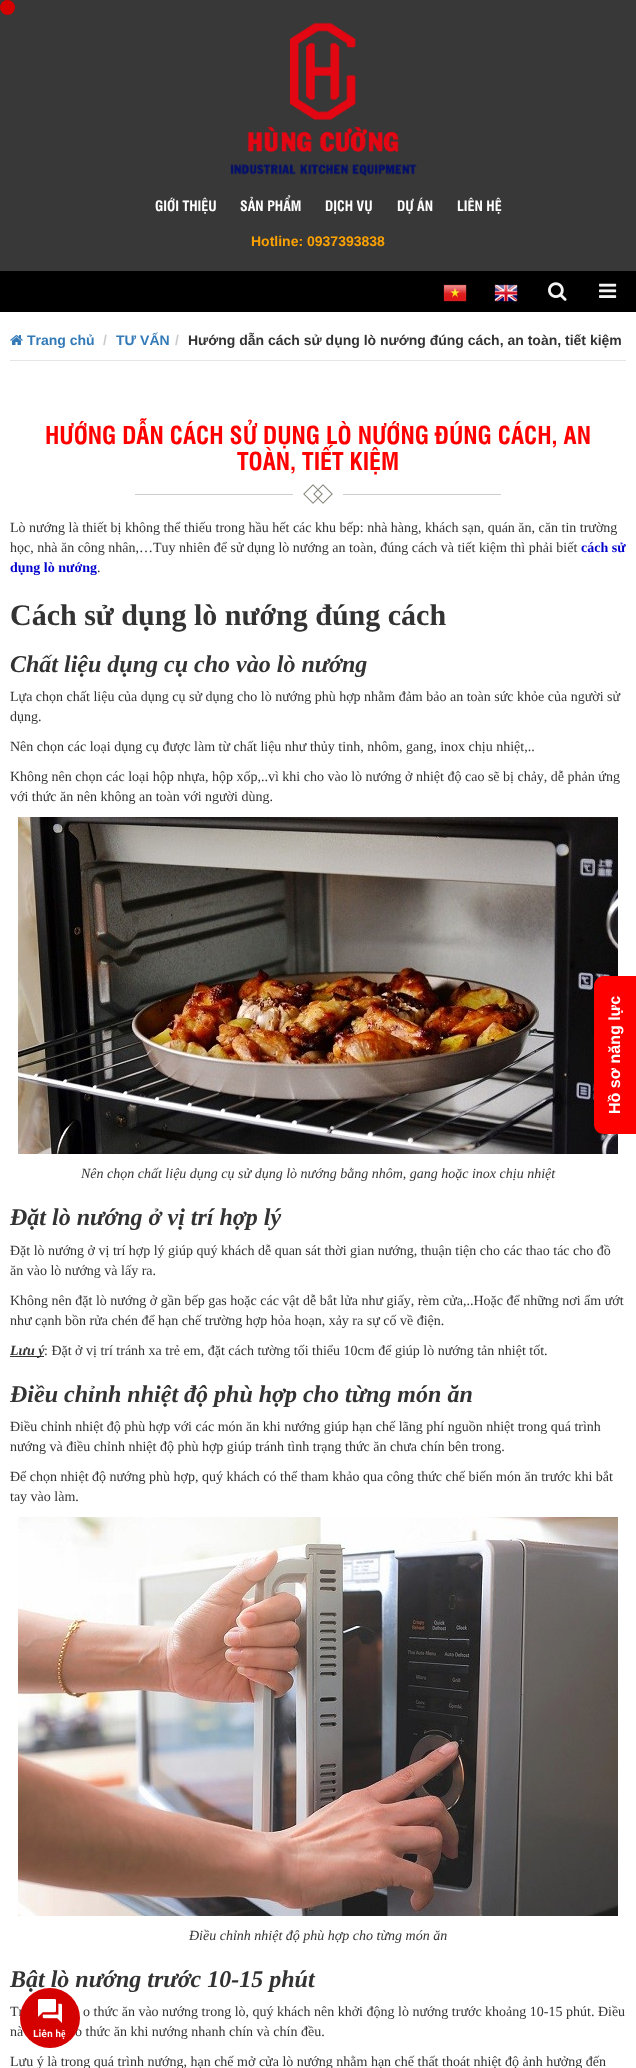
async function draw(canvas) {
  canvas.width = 636
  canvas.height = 2068
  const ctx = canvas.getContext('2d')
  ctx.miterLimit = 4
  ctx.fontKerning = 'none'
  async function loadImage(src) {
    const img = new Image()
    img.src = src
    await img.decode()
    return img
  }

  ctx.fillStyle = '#fff'
  ctx.fillRect(0, 0, 636, 2068)
  ctx.fillStyle = '#383838'
  ctx.fillRect(0, 0, 636, 271)
  ctx.fillStyle = '#d50000'
  ctx.beginPath()
  ctx.arc(7.5, 7.5, 7.5, 0, 2 * Math.PI)
  ctx.fill()
  ctx.drawImage(await loadImage('image0.png'), 230, 22, 187, 154)
  ctx.font = 'bold 14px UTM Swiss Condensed'
  ctx.fillStyle = '#fff'
  ctx.fillText('GIỚI THIỆU', 155, 211)
  ctx.fillText('SẢN PHẨM', 240, 211)
  ctx.fillText('DỊCH VỤ', 325, 211)
  ctx.fillText('DỰ ÁN', 397, 211)
  ctx.fillText('LIÊN HỆ', 457, 211)
  ctx.font = 'bold 14px Liberation Sans'
  ctx.fillStyle = '#fba103'
  ctx.fillText('Hotline: 0937393838', 251, 246)
  ctx.fillStyle = '#000'
  ctx.fillRect(0, 271, 636, 41)
  ctx.drawImage(await loadImage('image1.png'), 443, 284, 24, 18)
  ctx.drawImage(await loadImage('image2.png'), 494, 284, 24, 18)
  ctx.drawImage(await loadImage('image3.png'), 548, 282, 19, 19)
  ctx.drawImage(await loadImage('image4.png'), 599, 283, 18, 15)
  ctx.fillStyle = '#e6e6e6'
  ctx.fillRect(10, 360, 616, 1)
  ctx.drawImage(await loadImage('image5.png'), 10, 335, 13, 10)
  ctx.fillStyle = '#337ab7'
  ctx.fillText('Trang chủ', 27, 345)
  ctx.fillStyle = '#ccc'
  ctx.fillText('/', 103, 345)
  ctx.fillStyle = '#337ab7'
  ctx.fillText('TƯ VẤN', 116, 345)
  ctx.fillStyle = '#ccc'
  ctx.fillText('/', 175, 345)
  ctx.fillStyle = '#333'
  ctx.fillText('Hướng dẫn cách sử dụng lò nướng đúng cách, an toàn, tiết kiệm', 188, 345)
  ctx.drawImage(await loadImage('image6.png'), 135, 484, 366, 20)
  ctx.font = 'bold 24px UTM Swiss Condensed'
  ctx.fillStyle = '#f00'
  ctx.fillText('HƯỚNG DẪN CÁCH SỬ DỤNG LÒ NƯỚNG ĐÚNG CÁCH, AN', 45, 444)
  ctx.fillText('TOÀN, TIẾT KIỆM', 237, 470)
  ctx.font = '14px Liberation Serif'
  ctx.fillStyle = '#333'
  ctx.fillText('Lò nướng là thiết bị không thể thiếu trong hầu hết các khu bếp: nhà hàng, khách sạn, quán ăn, căn tin trường', 10, 532)
  ctx.fillText('học, nhà ăn công nhân,…Tuy nhiên để sử dụng lò nướng an toàn, đúng cách và tiết kiệm thì phải biết', 10, 552)
  ctx.font = 'bold 14px Liberation Serif'
  ctx.fillStyle = '#0000cd'
  ctx.fillText('cách sử', 581, 552)
  ctx.fillText('dụng lò nướng', 10, 572)
  ctx.font = '14px Liberation Serif'
  ctx.fillStyle = '#333'
  ctx.fillText('.', 97, 572)
  ctx.font = 'bold 30px Liberation Serif'
  ctx.fillText('Cách sử dụng lò nướng đúng cách', 10, 625)
  ctx.font = 'italic bold 24px Liberation Serif'
  ctx.fillText('Chất liệu dụng cụ cho vào lò nướng', 10, 672)
  ctx.font = '14px Liberation Serif'
  ctx.fillText('Lựa chọn chất liệu của dụng cụ sử dụng cho lò nướng phù hợp nhằm đảm bảo an toàn sức khỏe của người sử', 10, 701)
  ctx.fillText('dụng.', 10, 721)
  ctx.fillText('Nên chọn các loại dụng cụ được làm từ chất liệu như thủy tinh, nhôm, gang, inox chịu nhiệt,..', 10, 751)
  ctx.fillText('Không nên chọn các loại hộp nhựa, hộp xốp,..vì khi cho vào lò nướng ở nhiệt độ cao sẽ bị chảy, dễ phản ứng', 10, 781)
  ctx.fillText('với thức ăn nên không an toàn với người dùng.', 10, 801)
  ctx.drawImage(await loadImage('image7.png'), 18, 817, 600, 337)
  ctx.font = 'italic 14px Liberation Serif'
  ctx.fillText('Nên chọn chất liệu dụng cụ sử dụng lò nướng bằng nhôm, gang hoặc inox chịu nhiệt', 81, 1178)
  ctx.font = 'italic bold 24px Liberation Serif'
  ctx.fillText('Đặt lò nướng ở vị trí hợp lý', 10, 1225)
  ctx.font = '14px Liberation Serif'
  ctx.fillText('Đặt lò nướng ở vị trí hợp lý giúp quý khách dễ quan sát thời gian nướng, thuận tiện cho các thao tác cho đồ', 10, 1255)
  ctx.fillText('ăn vào lò nướng và lấy ra.', 10, 1275)
  ctx.fillText('Không nên đặt lò nướng ở gần bếp gas hoặc các vật dễ bắt lửa như giấy, rèm cửa,..Hoặc để những nơi ẩm ướt', 10, 1305)
  ctx.fillText('như cạnh bồn rửa chén để hạn chế trường hợp hỏa hoạn, xảy ra sự cố về điện.', 10, 1325)
  ctx.fillRect(10, 1356, 34, 1)
  ctx.font = 'italic bold 14px Liberation Serif'
  ctx.fillText('Lưu ý', 10, 1355)
  ctx.font = '14px Liberation Serif'
  ctx.fillText(': Đặt ở vị trí tránh xa trẻ em, đặt cách tường tối thiểu 10cm để giúp lò nướng tản nhiệt tốt.', 44, 1355)
  ctx.font = 'italic bold 24px Liberation Serif'
  ctx.fillText('Điều chỉnh nhiệt độ phù hợp cho từng món ăn', 10, 1402)
  ctx.font = '14px Liberation Serif'
  ctx.fillText('Điều chỉnh nhiệt độ phù hợp với các món ăn khi nướng giúp hạn chế lãng phí nguồn nhiệt trong quá trình', 10, 1431)
  ctx.fillText('nướng và điều chỉnh nhiệt độ phù hợp giúp tránh tình trạng thức ăn chưa chín bên trong.', 10, 1451)
  ctx.fillText('Để chọn nhiệt độ nướng phù hợp, quý khách có thể tham khảo qua công thức chế biến món ăn trước khi bắt', 10, 1481)
  ctx.fillText('tay vào làm.', 10, 1501)
  ctx.drawImage(await loadImage('image8.png'), 18, 1517, 600, 399)
  ctx.font = 'italic 14px Liberation Serif'
  ctx.fillText('Điều chỉnh nhiệt độ phù hợp cho từng món ăn', 189, 1940)
  ctx.font = 'italic bold 24px Liberation Serif'
  ctx.fillText('Bật lò nướng trước 10-15 phút', 10, 1987)
  ctx.font = '14px Liberation Serif'
  ctx.fillText('Tr', 10, 2016)
  ctx.fillText('o thức ăn vào nướng trong lò, quý khách nên khởi động lò nướng trước khoảng 10-15 phút. Điều', 83, 2016)
  ctx.fillText('nà', 10, 2036)
  ctx.fillText('o thức ăn khi nướng nhanh chín và chín đều.', 75, 2036)
  ctx.fillText('Lưu ý là trong quá trình nướng, hạn chế mở cửa lò nướng nhằm hạn chế thất thoát nhiệt độ ảnh hưởng đến', 10, 2066)
  ctx.fillStyle = '#d50000'
  ctx.beginPath()
  ctx.arc(50, 2018, 30, 0, 2 * Math.PI)
  ctx.fill()
  ctx.drawImage(await loadImage('image9.png'), 38, 1999, 24, 24)
  ctx.font = 'bold 10px Ubuntu'
  ctx.fillStyle = '#fff'
  ctx.fillText('Liên hệ', 33, 2037)
  ctx.fillStyle = '#f00'
  ctx.beginPath()
  ctx.moveTo(594, 1124)
  ctx.lineTo(594, 986)
  ctx.bezierCurveTo(594, 981, 598, 976, 604, 976)
  ctx.lineTo(636, 976)
  ctx.lineTo(636, 1134)
  ctx.lineTo(604, 1134)
  ctx.bezierCurveTo(598, 1134, 594, 1130, 594, 1124)
  ctx.closePath()
  ctx.fill()
  ctx.font = 'bold 16px Liberation Sans'
  ctx.fillStyle = '#fff'
  ctx.save()
  ctx.translate(620, 1114)
  ctx.rotate(-90 * Math.PI / 180)
  ctx.fillText('Hồ sơ năng lực', 0, 0)
  ctx.restore()
}

draw(document.querySelector('canvas'))
